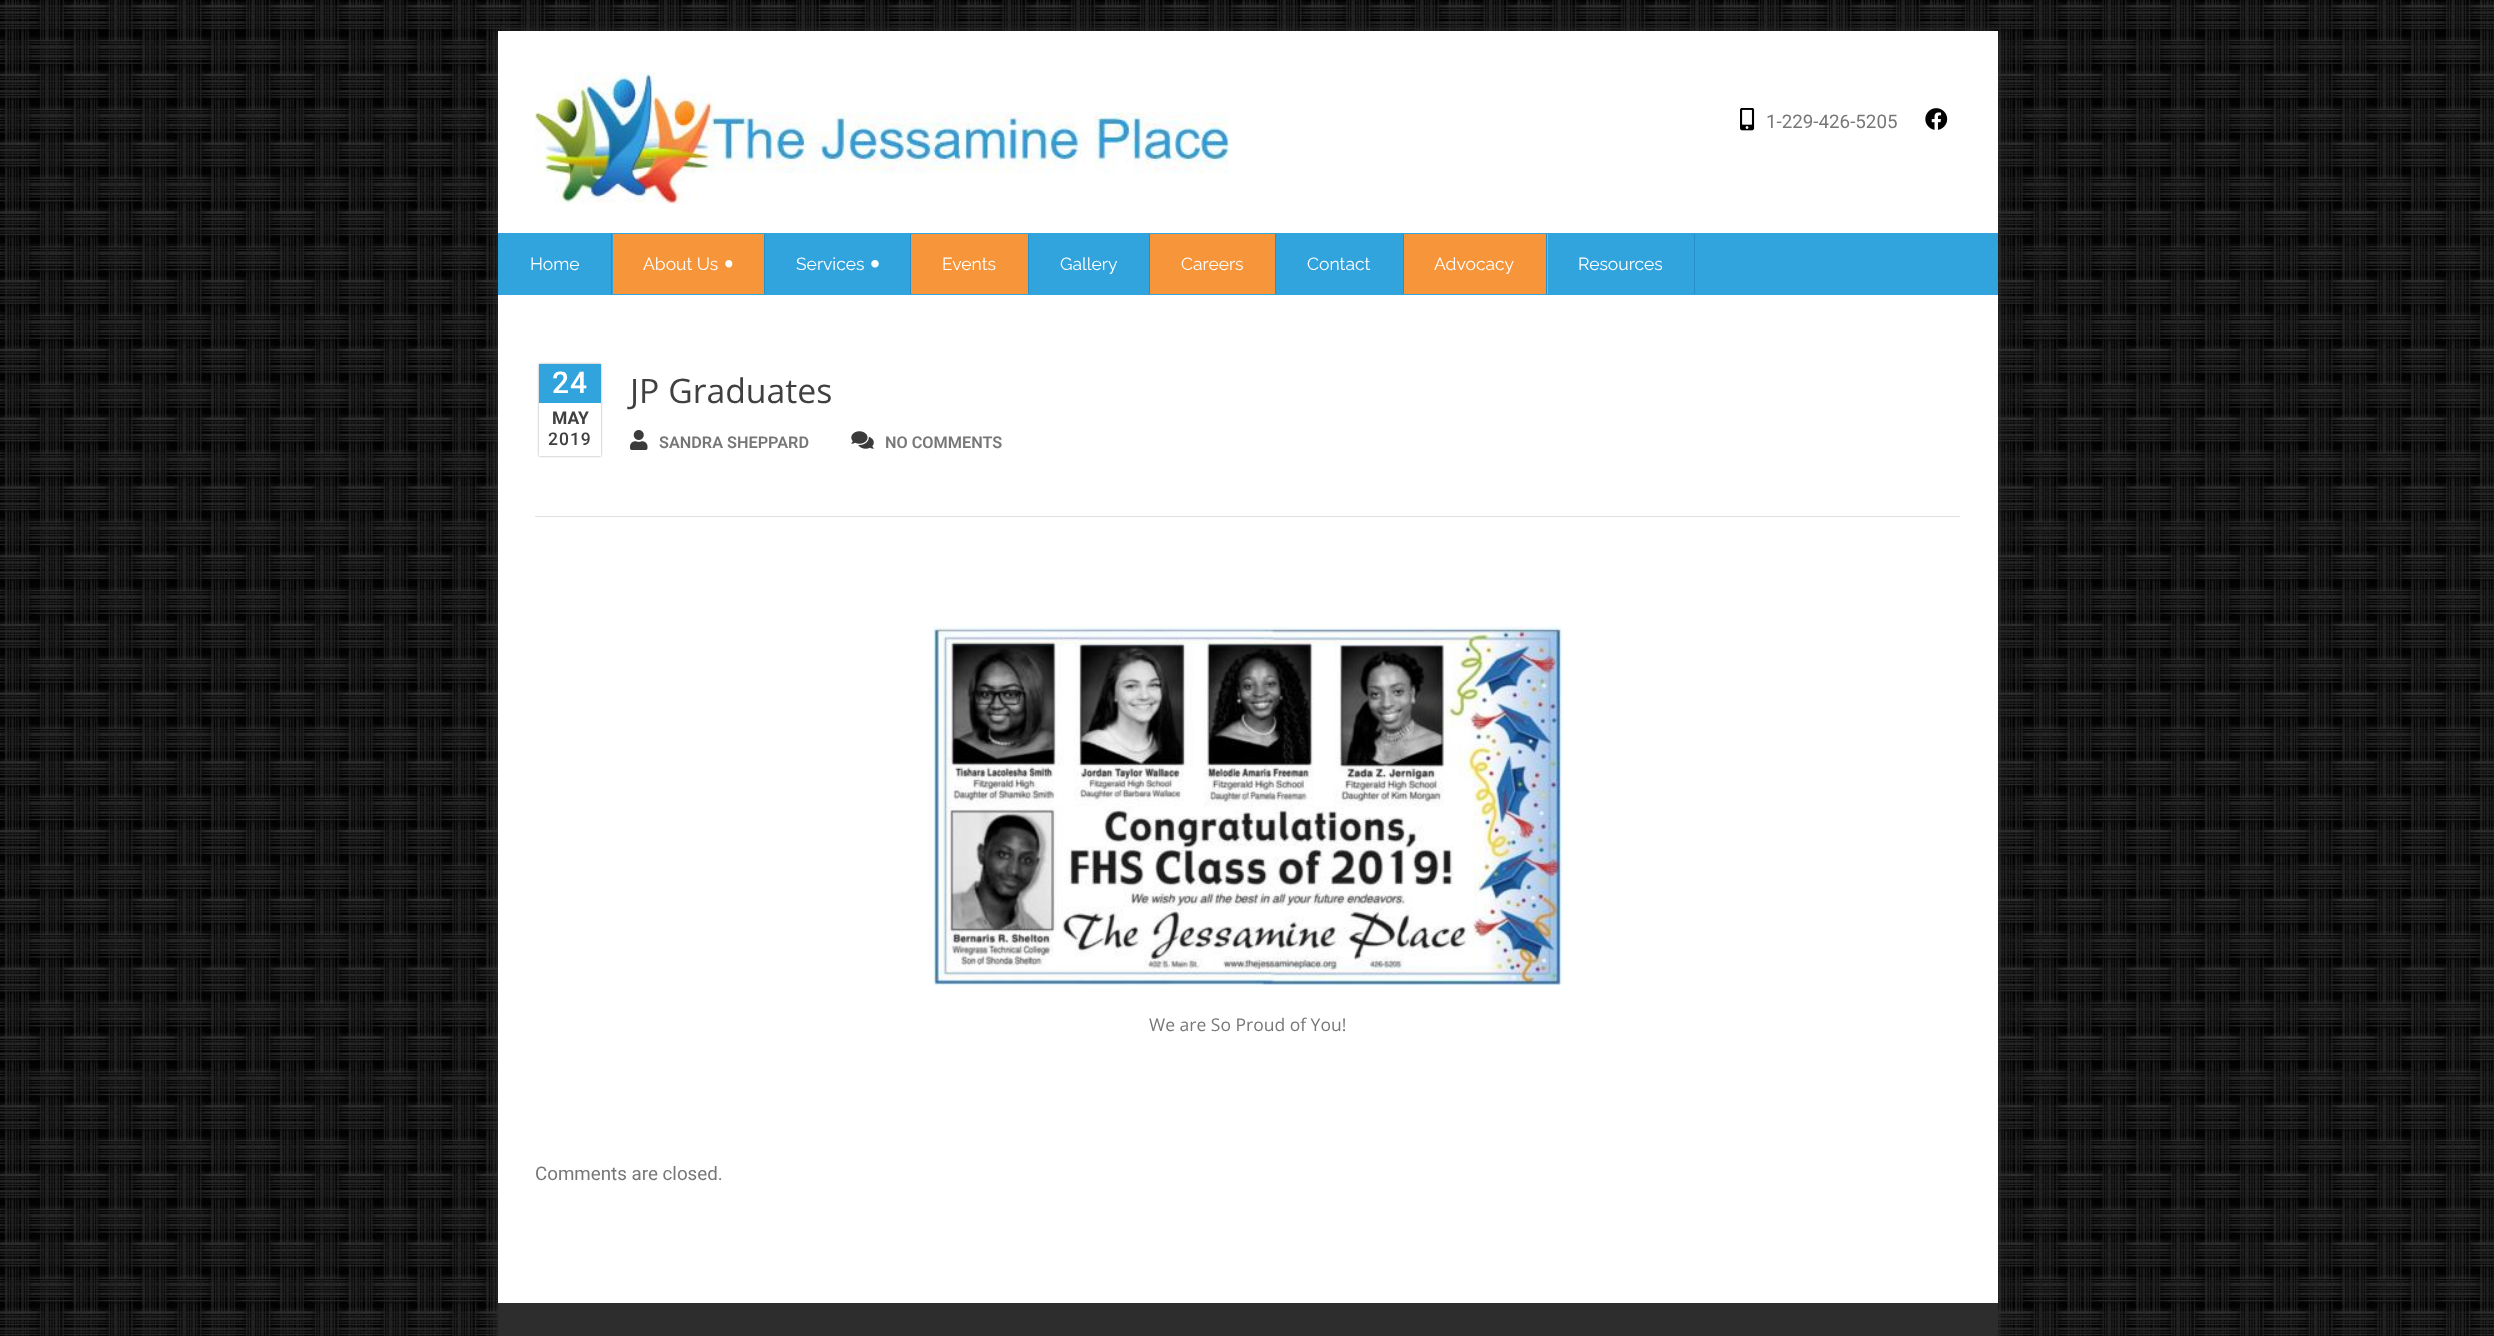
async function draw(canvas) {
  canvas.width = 2494
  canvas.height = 1336
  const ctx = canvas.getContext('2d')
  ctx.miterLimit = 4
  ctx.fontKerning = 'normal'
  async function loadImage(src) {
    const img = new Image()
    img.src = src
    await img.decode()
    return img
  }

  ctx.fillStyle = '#fff'
  ctx.fillRect(0, 0, 2494, 1336)
  ctx.drawImage(await loadImage('image0.png'), 0, 0, 2494, 1336)
  ctx.fillStyle = '#303030'
  ctx.filter = 'blur(4.5px)'
  ctx.beginPath()
  ctx.rect(498, 31, 1500, 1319)
  ctx.fill()
  ctx.filter = 'none'
  ctx.fillStyle = '#fff'
  ctx.fillRect(498, 31, 1500, 1272)
  ctx.drawImage(await loadImage('image1.png'), 535, 72, 694, 132)
  ctx.drawImage(await loadImage('image2.png'), 1740, 108, 15, 23)
  ctx.font = '18.75px Roboto'
  ctx.fillStyle = '#777'
  ctx.fillText('1-229-426-5205', 1766, 128)
  ctx.drawImage(await loadImage('image3.png'), 1925, 108, 23, 22)
  ctx.fillStyle = '#31a3dd'
  ctx.fillRect(498, 233, 1500, 62)
  ctx.fillStyle = '#2490c7'
  ctx.fillRect(611, 234, 1, 60)
  ctx.font = '17.5px Raleway'
  ctx.fillStyle = '#fff'
  ctx.fillText('Home', 530, 270)
  ctx.fillStyle = '#f69539'
  ctx.fillRect(613, 234, 151, 60)
  ctx.fillStyle = '#2490c7'
  ctx.fillRect(764, 234, 1, 60)
  ctx.fillStyle = '#fff'
  ctx.fillText('About Us', 643, 270)
  ctx.beginPath()
  ctx.moveTo(729, 260)
  ctx.bezierCurveTo(733.5, 260, 733.5, 267.5, 729, 267.5)
  ctx.bezierCurveTo(724, 267.5, 724, 260, 729, 260)
  ctx.closePath()
  ctx.moveTo(729, 267.5)
  ctx.lineTo(729, 264)
  ctx.closePath()
  ctx.fill('evenodd')
  ctx.fillStyle = '#2490c7'
  ctx.fillRect(910, 234, 1, 60)
  ctx.fillStyle = '#fff'
  ctx.fillText('Services', 796, 270)
  ctx.beginPath()
  ctx.moveTo(875, 260)
  ctx.bezierCurveTo(880, 260, 880, 267.5, 875, 267.5)
  ctx.bezierCurveTo(870, 267.5, 870, 260, 875, 260)
  ctx.closePath()
  ctx.moveTo(875, 267.5)
  ctx.lineTo(875, 264)
  ctx.closePath()
  ctx.fill('evenodd')
  ctx.fillStyle = '#f69539'
  ctx.fillRect(911, 234, 117, 60)
  ctx.fillStyle = '#2490c7'
  ctx.fillRect(1028, 234, 1, 60)
  ctx.fillStyle = '#fff'
  ctx.fillText('Events', 942, 270)
  ctx.fillStyle = '#2490c7'
  ctx.fillRect(1149, 234, 1, 60)
  ctx.fillStyle = '#fff'
  ctx.fillText('Gallery', 1060, 270)
  ctx.fillStyle = '#f69539'
  ctx.fillRect(1150, 234, 125, 60)
  ctx.fillStyle = '#2490c7'
  ctx.fillRect(1275, 234, 1, 60)
  ctx.fillStyle = '#fff'
  ctx.fillText('Careers', 1181, 270)
  ctx.fillStyle = '#2490c7'
  ctx.fillRect(1403, 234, 1, 60)
  ctx.fillStyle = '#fff'
  ctx.fillText('Contact', 1307, 270)
  ctx.fillStyle = '#f69539'
  ctx.fillRect(1404, 234, 144, 60)
  ctx.fillStyle = '#2490c7'
  ctx.fillRect(1546, 234, 1, 60)
  ctx.fillStyle = '#fff'
  ctx.fillText('Advocacy', 1434, 270)
  ctx.fillStyle = '#2490c7'
  ctx.fillRect(1694, 234, 1, 60)
  ctx.fillStyle = '#fff'
  ctx.fillText('Resources', 1578, 270)
  ctx.fillStyle = '#e0e0e0'
  ctx.fillRect(535, 516, 1425, 1)
  ctx.save()
  ctx.beginPath()
  ctx.moveTo(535, 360)
  ctx.lineTo(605, 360)
  ctx.lineTo(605, 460)
  ctx.lineTo(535, 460)
  ctx.closePath()
  ctx.moveTo(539, 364)
  ctx.lineTo(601, 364)
  ctx.lineTo(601, 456)
  ctx.lineTo(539, 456)
  ctx.closePath()
  ctx.clip('evenodd')
  ctx.fillStyle = '#9f9e9e'
  ctx.filter = 'blur(1px)'
  ctx.beginPath()
  ctx.rect(539, 364, 62, 92)
  ctx.fill()
  ctx.filter = 'none'
  ctx.restore()
  ctx.fillStyle = '#31a3dd'
  ctx.fillRect(539, 364, 62, 39)
  ctx.letterSpacing = '1px'
  ctx.font = '500 30px Roboto'
  ctx.fillStyle = '#fff'
  ctx.fillText('24', 552, 393)
  ctx.letterSpacing = '0px'
  ctx.font = 'bold 17.5px Roboto'
  ctx.fillStyle = '#404040'
  ctx.fillText('MAY', 552, 424)
  ctx.letterSpacing = '1px'
  ctx.font = '500 17.5px Roboto'
  ctx.fillText('2019', 548, 445)
  ctx.letterSpacing = '0px'
  ctx.font = '33.75px Open Sans'
  ctx.fillText('JP Graduates', 630, 403)
  ctx.drawImage(await loadImage('image4.png'), 630, 430, 18, 20)
  ctx.font = '600 16.25px Roboto'
  ctx.fillStyle = '#777'
  ctx.fillText('SANDRA SHEPPARD', 659, 448)
  ctx.drawImage(await loadImage('image5.png'), 851, 431, 23, 18)
  ctx.fillText('NO COMMENTS', 885, 448)
  ctx.drawImage(await loadImage('image6.png'), 933, 626, 630, 359)
  ctx.font = '17.5px Open Sans'
  ctx.fillText('We are So Proud of You!', 1149, 1031)
  ctx.font = '18.75px Roboto'
  ctx.fillText('Comments are closed.', 535, 1180)
  ctx.fillStyle = '#2d2d2d'
  ctx.fillRect(498, 1303, 1500, 33)
}

draw(document.querySelector('canvas'))
